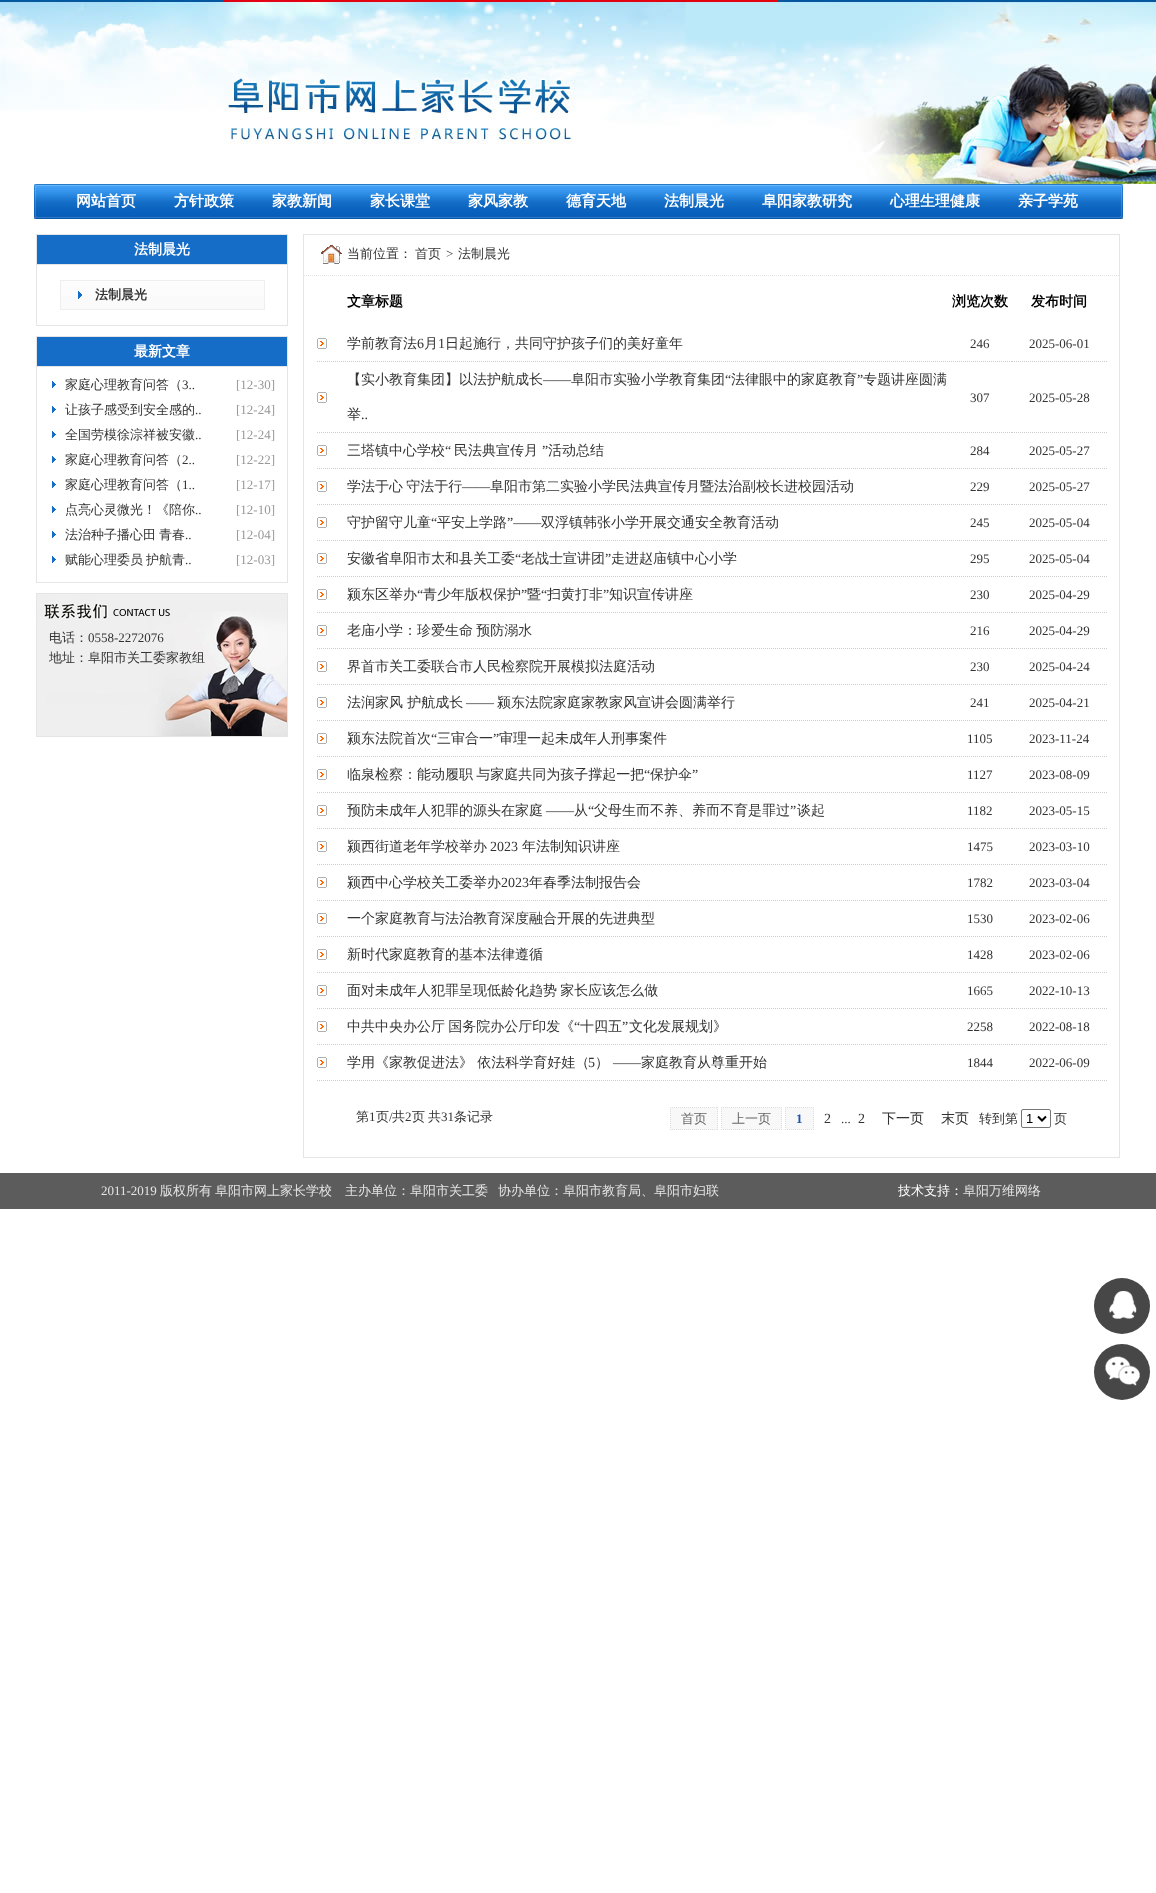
async function draw(canvas) {
  canvas.width = 1156
  canvas.height = 1893
  const ctx = canvas.getContext('2d')
  ctx.miterLimit = 4
  ctx.fontKerning = 'normal'
  async function loadImage(src) {
    const img = new Image()
    img.src = src
    await img.decode()
    return img
  }

  ctx.fillStyle = '#fff'
  ctx.fillRect(0, 0, 1156, 1893)
  ctx.drawImage(await loadImage('image0.png'), 0, 0, 1156, 184)
  ctx.drawImage(await loadImage('image1.png'), 37, 184, 1083, 35)
  ctx.drawImage(await loadImage('image2.png'), 34, 184, 3, 35)
  ctx.font = 'bold 15px WenQuanYi Zen Hei'
  ctx.fillText('网站首页', 76, 206)
  ctx.fillText('方针政策', 174, 206)
  ctx.fillText('家教新闻', 272, 206)
  ctx.fillText('家长课堂', 370, 206)
  ctx.fillText('家风家教', 468, 206)
  ctx.fillText('德育天地', 566, 206)
  ctx.fillText('法制晨光', 664, 206)
  ctx.fillText('阜阳家教研究', 762, 206)
  ctx.fillText('心理生理健康', 890, 206)
  ctx.fillText('亲子学苑', 1018, 206)
  ctx.drawImage(await loadImage('image3.png'), 1120, 184, 3, 35)
  ctx.strokeStyle = '#e5e5e5'
  ctx.strokeRect(36.5, 234.5, 251, 91)
  ctx.fillStyle = '#e5e5e5'
  ctx.fillRect(37, 264, 250, 1)
  ctx.fillStyle = '#156dc8'
  ctx.fillRect(37, 235, 250, 29)
  ctx.font = 'bold 14px WenQuanYi Zen Hei'
  ctx.fillStyle = '#fff'
  ctx.fillText('法制晨光', 134, 254)
  ctx.drawImage(await loadImage('image4.png'), 60, 280, 205, 30)
  ctx.font = 'bold 13px WenQuanYi Zen Hei'
  ctx.fillStyle = '#333'
  ctx.fillText('法制晨光', 95, 299)
  ctx.strokeRect(36.5, 336.5, 251, 246)
  ctx.fillStyle = '#e5e5e5'
  ctx.fillRect(37, 366, 250, 1)
  ctx.fillStyle = '#156dc8'
  ctx.fillRect(37, 337, 250, 29)
  ctx.font = 'bold 14px WenQuanYi Zen Hei'
  ctx.fillStyle = '#fff'
  ctx.fillText('最新文章', 134, 356)
  ctx.drawImage(await loadImage('image5.png'), 52, 381, 4, 7)
  ctx.font = '500 13px WenQuanYi Zen Hei'
  ctx.fillStyle = '#333'
  ctx.fillText('家庭心理教育问答（', 65, 389)
  ctx.font = '13px Liberation Serif'
  ctx.fillText('3..', 182, 389)
  ctx.fillStyle = '#999'
  ctx.fillText('[12-30]', 236, 389)
  ctx.drawImage(await loadImage('image5.png'), 52, 406, 4, 7)
  ctx.font = '500 13px WenQuanYi Zen Hei'
  ctx.fillStyle = '#333'
  ctx.fillText('让孩子感受到安全感的', 65, 414)
  ctx.font = '13px Liberation Serif'
  ctx.fillText('..', 195, 414)
  ctx.fillStyle = '#999'
  ctx.fillText('[12-24]', 236, 414)
  ctx.drawImage(await loadImage('image5.png'), 52, 431, 4, 7)
  ctx.font = '500 13px WenQuanYi Zen Hei'
  ctx.fillStyle = '#333'
  ctx.fillText('全国劳模徐淙祥被安徽', 65, 439)
  ctx.font = '13px Liberation Serif'
  ctx.fillText('..', 195, 439)
  ctx.fillStyle = '#999'
  ctx.fillText('[12-24]', 236, 439)
  ctx.drawImage(await loadImage('image5.png'), 52, 456, 4, 7)
  ctx.font = '500 13px WenQuanYi Zen Hei'
  ctx.fillStyle = '#333'
  ctx.fillText('家庭心理教育问答（', 65, 464)
  ctx.font = '13px Liberation Serif'
  ctx.fillText('2..', 182, 464)
  ctx.fillStyle = '#999'
  ctx.fillText('[12-22]', 236, 464)
  ctx.drawImage(await loadImage('image5.png'), 52, 481, 4, 7)
  ctx.font = '500 13px WenQuanYi Zen Hei'
  ctx.fillStyle = '#333'
  ctx.fillText('家庭心理教育问答（', 65, 489)
  ctx.font = '13px Liberation Serif'
  ctx.fillText('1..', 182, 489)
  ctx.fillStyle = '#999'
  ctx.fillText('[12-17]', 236, 489)
  ctx.drawImage(await loadImage('image5.png'), 52, 506, 4, 7)
  ctx.font = '500 13px WenQuanYi Zen Hei'
  ctx.fillStyle = '#333'
  ctx.fillText('点亮心灵微光！《陪你', 65, 514)
  ctx.font = '13px Liberation Serif'
  ctx.fillText('..', 195, 514)
  ctx.fillStyle = '#999'
  ctx.fillText('[12-10]', 236, 514)
  ctx.drawImage(await loadImage('image5.png'), 52, 531, 4, 7)
  ctx.wordSpacing = '-1px'
  ctx.font = '500 13px WenQuanYi Zen Hei'
  ctx.fillStyle = '#333'
  ctx.fillText('法治种子播心田 青春', 65, 539)
  ctx.wordSpacing = '0px'
  ctx.font = '13px Liberation Serif'
  ctx.fillText('..', 185, 539)
  ctx.fillStyle = '#999'
  ctx.fillText('[12-04]', 236, 539)
  ctx.drawImage(await loadImage('image5.png'), 52, 556, 4, 7)
  ctx.wordSpacing = '-1px'
  ctx.font = '500 13px WenQuanYi Zen Hei'
  ctx.fillStyle = '#333'
  ctx.fillText('赋能心理委员 护航青', 65, 564)
  ctx.wordSpacing = '0px'
  ctx.font = '13px Liberation Serif'
  ctx.fillText('..', 185, 564)
  ctx.fillStyle = '#999'
  ctx.fillText('[12-03]', 236, 564)
  ctx.drawImage(await loadImage('image6.png'), 37, 594, 250, 142)
  ctx.strokeRect(36.5, 593.5, 251, 143)
  ctx.font = '500 13px WenQuanYi Zen Hei'
  ctx.fillStyle = '#333'
  ctx.fillText('电话：', 49, 642)
  ctx.font = '13px Liberation Serif'
  ctx.fillText('0558-2272076', 88, 642)
  ctx.font = '500 13px WenQuanYi Zen Hei'
  ctx.fillText('地址：阜阳市关工委家教组', 49, 662)
  ctx.strokeRect(303.5, 234.5, 816, 923)
  ctx.beginPath()
  ctx.moveTo(304, 275.5)
  ctx.lineTo(1119, 275.5)
  ctx.setLineDash([1, 1])
  ctx.stroke()
  ctx.drawImage(await loadImage('image7.png'), 321, 245, 21, 19)
  ctx.wordSpacing = '-1px'
  ctx.fillText('当前位置： 首页', 347, 258)
  ctx.wordSpacing = '0px'
  ctx.font = '13px Liberation Serif'
  ctx.fillText('>', 446, 258)
  ctx.font = '500 13px WenQuanYi Zen Hei'
  ctx.fillText('法制晨光', 458, 258)
  ctx.font = 'bold 14px WenQuanYi Zen Hei'
  ctx.fillStyle = '#000'
  ctx.fillText('文章标题', 347, 306)
  ctx.fillText('浏览次数', 952, 306)
  ctx.fillText('发布时间', 1031, 306)
  ctx.beginPath()
  ctx.moveTo(317, 361.5)
  ctx.lineTo(347, 361.5)
  ctx.strokeStyle = '#ccc'
  ctx.stroke()
  ctx.drawImage(await loadImage('image8.png'), 317, 338, 10, 11)
  ctx.beginPath()
  ctx.moveTo(347, 361.5)
  ctx.lineTo(949, 361.5)
  ctx.stroke()
  ctx.font = '500 14px WenQuanYi Zen Hei'
  ctx.fillStyle = '#333'
  ctx.fillText('学前教育法', 347, 348)
  ctx.font = '14px Liberation Serif'
  ctx.fillText('6', 417, 348)
  ctx.font = '500 14px WenQuanYi Zen Hei'
  ctx.fillText('月', 424, 348)
  ctx.font = '14px Liberation Serif'
  ctx.fillText('1', 438, 348)
  ctx.font = '500 14px WenQuanYi Zen Hei'
  ctx.fillText('日起施行，共同守护孩子们的美好童年', 445, 348)
  ctx.beginPath()
  ctx.moveTo(949, 361.5)
  ctx.lineTo(1012, 361.5)
  ctx.stroke()
  ctx.font = '13px Liberation Serif'
  ctx.fillText('246', 970, 348)
  ctx.beginPath()
  ctx.moveTo(1012, 361.5)
  ctx.lineTo(1107, 361.5)
  ctx.stroke()
  ctx.fillText('2025-06-01', 1029, 348)
  ctx.beginPath()
  ctx.moveTo(317, 432.5)
  ctx.lineTo(347, 432.5)
  ctx.stroke()
  ctx.drawImage(await loadImage('image8.png'), 317, 392, 10, 11)
  ctx.beginPath()
  ctx.moveTo(347, 432.5)
  ctx.lineTo(949, 432.5)
  ctx.stroke()
  ctx.font = '500 14px WenQuanYi Zen Hei'
  ctx.fillText('【实小教育集团】以法护航成长', 347, 384)
  ctx.font = '14px Liberation Serif'
  ctx.fillText('——', 543, 384)
  ctx.font = '500 14px WenQuanYi Zen Hei'
  ctx.fillText('阜阳市实验小学教育集团', 571, 384)
  ctx.font = '14px Liberation Serif'
  ctx.fillText('“', 725, 384)
  ctx.font = '500 14px WenQuanYi Zen Hei'
  ctx.fillText('法律眼中的家庭教育', 731, 384)
  ctx.font = '14px Liberation Serif'
  ctx.fillText('”', 857, 384)
  ctx.font = '500 14px WenQuanYi Zen Hei'
  ctx.fillText('专题讲座圆满', 863, 384)
  ctx.fillText('举', 347, 419)
  ctx.font = '14px Liberation Serif'
  ctx.fillText('..', 361, 419)
  ctx.beginPath()
  ctx.moveTo(949, 432.5)
  ctx.lineTo(1012, 432.5)
  ctx.stroke()
  ctx.font = '13px Liberation Serif'
  ctx.fillText('307', 970, 402)
  ctx.beginPath()
  ctx.moveTo(1012, 432.5)
  ctx.lineTo(1107, 432.5)
  ctx.stroke()
  ctx.fillText('2025-05-28', 1029, 402)
  ctx.beginPath()
  ctx.moveTo(317, 468.5)
  ctx.lineTo(347, 468.5)
  ctx.stroke()
  ctx.drawImage(await loadImage('image8.png'), 317, 445, 10, 11)
  ctx.beginPath()
  ctx.moveTo(347, 468.5)
  ctx.lineTo(949, 468.5)
  ctx.stroke()
  ctx.font = '500 14px WenQuanYi Zen Hei'
  ctx.fillText('三塔镇中心学校', 347, 455)
  ctx.font = '14px Liberation Serif'
  ctx.fillText('“', 445, 455)
  ctx.font = '500 14px WenQuanYi Zen Hei'
  ctx.fillText('民法典宣传月', 454, 455)
  ctx.font = '14px Liberation Serif'
  ctx.fillText('”', 542, 455)
  ctx.font = '500 14px WenQuanYi Zen Hei'
  ctx.fillText('活动总结', 548, 455)
  ctx.beginPath()
  ctx.moveTo(949, 468.5)
  ctx.lineTo(1012, 468.5)
  ctx.stroke()
  ctx.font = '13px Liberation Serif'
  ctx.fillText('284', 970, 455)
  ctx.beginPath()
  ctx.moveTo(1012, 468.5)
  ctx.lineTo(1107, 468.5)
  ctx.stroke()
  ctx.fillText('2025-05-27', 1029, 455)
  ctx.beginPath()
  ctx.moveTo(317, 504.5)
  ctx.lineTo(347, 504.5)
  ctx.stroke()
  ctx.drawImage(await loadImage('image8.png'), 317, 481, 10, 11)
  ctx.beginPath()
  ctx.moveTo(347, 504.5)
  ctx.lineTo(949, 504.5)
  ctx.stroke()
  ctx.wordSpacing = '-1px'
  ctx.font = '500 14px WenQuanYi Zen Hei'
  ctx.fillText('学法于心 守法于行', 347, 491)
  ctx.wordSpacing = '0px'
  ctx.font = '14px Liberation Serif'
  ctx.fillText('——', 462, 491)
  ctx.font = '500 14px WenQuanYi Zen Hei'
  ctx.fillText('阜阳市第二实验小学民法典宣传月暨法治副校长进校园活动', 490, 491)
  ctx.beginPath()
  ctx.moveTo(949, 504.5)
  ctx.lineTo(1012, 504.5)
  ctx.stroke()
  ctx.font = '13px Liberation Serif'
  ctx.fillText('229', 970, 491)
  ctx.beginPath()
  ctx.moveTo(1012, 504.5)
  ctx.lineTo(1107, 504.5)
  ctx.stroke()
  ctx.fillText('2025-05-27', 1029, 491)
  ctx.beginPath()
  ctx.moveTo(317, 540.5)
  ctx.lineTo(347, 540.5)
  ctx.stroke()
  ctx.drawImage(await loadImage('image8.png'), 317, 517, 10, 11)
  ctx.beginPath()
  ctx.moveTo(347, 540.5)
  ctx.lineTo(949, 540.5)
  ctx.stroke()
  ctx.font = '500 14px WenQuanYi Zen Hei'
  ctx.fillText('守护留守儿童', 347, 527)
  ctx.font = '14px Liberation Serif'
  ctx.fillText('“', 431, 527)
  ctx.font = '500 14px WenQuanYi Zen Hei'
  ctx.fillText('平安上学路', 437, 527)
  ctx.font = '14px Liberation Serif'
  ctx.fillText('”——', 507, 527)
  ctx.font = '500 14px WenQuanYi Zen Hei'
  ctx.fillText('双浮镇韩张小学开展交通安全教育活动', 541, 527)
  ctx.beginPath()
  ctx.moveTo(949, 540.5)
  ctx.lineTo(1012, 540.5)
  ctx.stroke()
  ctx.font = '13px Liberation Serif'
  ctx.fillText('245', 970, 527)
  ctx.beginPath()
  ctx.moveTo(1012, 540.5)
  ctx.lineTo(1107, 540.5)
  ctx.stroke()
  ctx.fillText('2025-05-04', 1029, 527)
  ctx.beginPath()
  ctx.moveTo(317, 576.5)
  ctx.lineTo(347, 576.5)
  ctx.stroke()
  ctx.drawImage(await loadImage('image8.png'), 317, 553, 10, 11)
  ctx.beginPath()
  ctx.moveTo(347, 576.5)
  ctx.lineTo(949, 576.5)
  ctx.stroke()
  ctx.font = '500 14px WenQuanYi Zen Hei'
  ctx.fillText('安徽省阜阳市太和县关工委', 347, 563)
  ctx.font = '14px Liberation Serif'
  ctx.fillText('“', 515, 563)
  ctx.font = '500 14px WenQuanYi Zen Hei'
  ctx.fillText('老战士宣讲团', 521, 563)
  ctx.font = '14px Liberation Serif'
  ctx.fillText('”', 605, 563)
  ctx.font = '500 14px WenQuanYi Zen Hei'
  ctx.fillText('走进赵庙镇中心小学', 611, 563)
  ctx.beginPath()
  ctx.moveTo(949, 576.5)
  ctx.lineTo(1012, 576.5)
  ctx.stroke()
  ctx.font = '13px Liberation Serif'
  ctx.fillText('295', 970, 563)
  ctx.beginPath()
  ctx.moveTo(1012, 576.5)
  ctx.lineTo(1107, 576.5)
  ctx.stroke()
  ctx.fillText('2025-05-04', 1029, 563)
  ctx.beginPath()
  ctx.moveTo(317, 612.5)
  ctx.lineTo(347, 612.5)
  ctx.stroke()
  ctx.drawImage(await loadImage('image8.png'), 317, 589, 10, 11)
  ctx.beginPath()
  ctx.moveTo(347, 612.5)
  ctx.lineTo(949, 612.5)
  ctx.stroke()
  ctx.font = '500 14px WenQuanYi Zen Hei'
  ctx.fillText('颍东区举办', 347, 599)
  ctx.font = '14px Liberation Serif'
  ctx.fillText('“', 417, 599)
  ctx.font = '500 14px WenQuanYi Zen Hei'
  ctx.fillText('青少年版权保护', 423, 599)
  ctx.font = '14px Liberation Serif'
  ctx.fillText('”', 521, 599)
  ctx.font = '500 14px WenQuanYi Zen Hei'
  ctx.fillText('暨', 527, 599)
  ctx.font = '14px Liberation Serif'
  ctx.fillText('“', 541, 599)
  ctx.font = '500 14px WenQuanYi Zen Hei'
  ctx.fillText('扫黄打非', 547, 599)
  ctx.font = '14px Liberation Serif'
  ctx.fillText('”', 603, 599)
  ctx.font = '500 14px WenQuanYi Zen Hei'
  ctx.fillText('知识宣传讲座', 609, 599)
  ctx.beginPath()
  ctx.moveTo(949, 612.5)
  ctx.lineTo(1012, 612.5)
  ctx.stroke()
  ctx.font = '13px Liberation Serif'
  ctx.fillText('230', 970, 599)
  ctx.beginPath()
  ctx.moveTo(1012, 612.5)
  ctx.lineTo(1107, 612.5)
  ctx.stroke()
  ctx.fillText('2025-04-29', 1029, 599)
  ctx.beginPath()
  ctx.moveTo(317, 648.5)
  ctx.lineTo(347, 648.5)
  ctx.stroke()
  ctx.drawImage(await loadImage('image8.png'), 317, 625, 10, 11)
  ctx.beginPath()
  ctx.moveTo(347, 648.5)
  ctx.lineTo(949, 648.5)
  ctx.stroke()
  ctx.wordSpacing = '-1px'
  ctx.font = '500 14px WenQuanYi Zen Hei'
  ctx.fillText('老庙小学：珍爱生命 预防溺水', 347, 635)
  ctx.beginPath()
  ctx.moveTo(949, 648.5)
  ctx.lineTo(1012, 648.5)
  ctx.stroke()
  ctx.wordSpacing = '0px'
  ctx.font = '13px Liberation Serif'
  ctx.fillText('216', 970, 635)
  ctx.beginPath()
  ctx.moveTo(1012, 648.5)
  ctx.lineTo(1107, 648.5)
  ctx.stroke()
  ctx.fillText('2025-04-29', 1029, 635)
  ctx.beginPath()
  ctx.moveTo(317, 684.5)
  ctx.lineTo(347, 684.5)
  ctx.stroke()
  ctx.drawImage(await loadImage('image8.png'), 317, 661, 10, 11)
  ctx.beginPath()
  ctx.moveTo(347, 684.5)
  ctx.lineTo(949, 684.5)
  ctx.stroke()
  ctx.font = '500 14px WenQuanYi Zen Hei'
  ctx.fillText('界首市关工委联合市人民检察院开展模拟法庭活动', 347, 671)
  ctx.beginPath()
  ctx.moveTo(949, 684.5)
  ctx.lineTo(1012, 684.5)
  ctx.stroke()
  ctx.font = '13px Liberation Serif'
  ctx.fillText('230', 970, 671)
  ctx.beginPath()
  ctx.moveTo(1012, 684.5)
  ctx.lineTo(1107, 684.5)
  ctx.stroke()
  ctx.fillText('2025-04-24', 1029, 671)
  ctx.beginPath()
  ctx.moveTo(317, 720.5)
  ctx.lineTo(347, 720.5)
  ctx.stroke()
  ctx.drawImage(await loadImage('image8.png'), 317, 697, 10, 11)
  ctx.beginPath()
  ctx.moveTo(347, 720.5)
  ctx.lineTo(949, 720.5)
  ctx.stroke()
  ctx.font = '500 14px WenQuanYi Zen Hei'
  ctx.fillText('法润家风 护航成长', 347, 707)
  ctx.font = '14px Liberation Serif'
  ctx.fillText('——', 466, 707)
  ctx.font = '500 14px WenQuanYi Zen Hei'
  ctx.fillText('颍东法院家庭家教家风宣讲会圆满举行', 497, 707)
  ctx.beginPath()
  ctx.moveTo(949, 720.5)
  ctx.lineTo(1012, 720.5)
  ctx.stroke()
  ctx.font = '13px Liberation Serif'
  ctx.fillText('241', 970, 707)
  ctx.beginPath()
  ctx.moveTo(1012, 720.5)
  ctx.lineTo(1107, 720.5)
  ctx.stroke()
  ctx.fillText('2025-04-21', 1029, 707)
  ctx.beginPath()
  ctx.moveTo(317, 756.5)
  ctx.lineTo(347, 756.5)
  ctx.stroke()
  ctx.drawImage(await loadImage('image8.png'), 317, 733, 10, 11)
  ctx.beginPath()
  ctx.moveTo(347, 756.5)
  ctx.lineTo(949, 756.5)
  ctx.stroke()
  ctx.font = '500 14px WenQuanYi Zen Hei'
  ctx.fillText('颍东法院首次', 347, 743)
  ctx.font = '14px Liberation Serif'
  ctx.fillText('“', 431, 743)
  ctx.font = '500 14px WenQuanYi Zen Hei'
  ctx.fillText('三审合一', 437, 743)
  ctx.font = '14px Liberation Serif'
  ctx.fillText('”', 493, 743)
  ctx.font = '500 14px WenQuanYi Zen Hei'
  ctx.fillText('审理一起未成年人刑事案件', 499, 743)
  ctx.beginPath()
  ctx.moveTo(949, 756.5)
  ctx.lineTo(1012, 756.5)
  ctx.stroke()
  ctx.font = '13px Liberation Serif'
  ctx.fillText('1105', 967, 743)
  ctx.beginPath()
  ctx.moveTo(1012, 756.5)
  ctx.lineTo(1107, 756.5)
  ctx.stroke()
  ctx.fillText('2023-11-24', 1029, 743)
  ctx.beginPath()
  ctx.moveTo(317, 792.5)
  ctx.lineTo(347, 792.5)
  ctx.stroke()
  ctx.drawImage(await loadImage('image8.png'), 317, 769, 10, 11)
  ctx.beginPath()
  ctx.moveTo(347, 792.5)
  ctx.lineTo(949, 792.5)
  ctx.stroke()
  ctx.wordSpacing = '-1px'
  ctx.font = '500 14px WenQuanYi Zen Hei'
  ctx.fillText('临泉检察：能动履职 与家庭共同为孩子撑起一把', 347, 779)
  ctx.wordSpacing = '0px'
  ctx.font = '14px Liberation Serif'
  ctx.fillText('“', 644, 779)
  ctx.font = '500 14px WenQuanYi Zen Hei'
  ctx.fillText('保护伞', 650, 779)
  ctx.font = '14px Liberation Serif'
  ctx.fillText('”', 692, 779)
  ctx.beginPath()
  ctx.moveTo(949, 792.5)
  ctx.lineTo(1012, 792.5)
  ctx.stroke()
  ctx.font = '13px Liberation Serif'
  ctx.fillText('1127', 967, 779)
  ctx.beginPath()
  ctx.moveTo(1012, 792.5)
  ctx.lineTo(1107, 792.5)
  ctx.stroke()
  ctx.fillText('2023-08-09', 1029, 779)
  ctx.beginPath()
  ctx.moveTo(317, 828.5)
  ctx.lineTo(347, 828.5)
  ctx.stroke()
  ctx.drawImage(await loadImage('image8.png'), 317, 805, 10, 11)
  ctx.beginPath()
  ctx.moveTo(347, 828.5)
  ctx.lineTo(949, 828.5)
  ctx.stroke()
  ctx.font = '500 14px WenQuanYi Zen Hei'
  ctx.fillText('预防未成年人犯罪的源头在家庭', 347, 815)
  ctx.font = '14px Liberation Serif'
  ctx.fillText('——', 546, 815)
  ctx.font = '500 14px WenQuanYi Zen Hei'
  ctx.fillText('从', 574, 815)
  ctx.font = '14px Liberation Serif'
  ctx.fillText('“', 588, 815)
  ctx.font = '500 14px WenQuanYi Zen Hei'
  ctx.fillText('父母生而不养、养而不育是罪过', 594, 815)
  ctx.font = '14px Liberation Serif'
  ctx.fillText('”', 790, 815)
  ctx.font = '500 14px WenQuanYi Zen Hei'
  ctx.fillText('谈起', 797, 815)
  ctx.beginPath()
  ctx.moveTo(949, 828.5)
  ctx.lineTo(1012, 828.5)
  ctx.stroke()
  ctx.font = '13px Liberation Serif'
  ctx.fillText('1182', 967, 815)
  ctx.beginPath()
  ctx.moveTo(1012, 828.5)
  ctx.lineTo(1107, 828.5)
  ctx.stroke()
  ctx.fillText('2023-05-15', 1029, 815)
  ctx.beginPath()
  ctx.moveTo(317, 864.5)
  ctx.lineTo(347, 864.5)
  ctx.stroke()
  ctx.drawImage(await loadImage('image8.png'), 317, 841, 10, 11)
  ctx.beginPath()
  ctx.moveTo(347, 864.5)
  ctx.lineTo(949, 864.5)
  ctx.stroke()
  ctx.font = '500 14px WenQuanYi Zen Hei'
  ctx.fillText('颍西街道老年学校举办', 347, 851)
  ctx.font = '14px Liberation Serif'
  ctx.fillText('2023', 490, 851)
  ctx.font = '500 14px WenQuanYi Zen Hei'
  ctx.fillText('年法制知识讲座', 522, 851)
  ctx.beginPath()
  ctx.moveTo(949, 864.5)
  ctx.lineTo(1012, 864.5)
  ctx.stroke()
  ctx.font = '13px Liberation Serif'
  ctx.fillText('1475', 967, 851)
  ctx.beginPath()
  ctx.moveTo(1012, 864.5)
  ctx.lineTo(1107, 864.5)
  ctx.stroke()
  ctx.fillText('2023-03-10', 1029, 851)
  ctx.beginPath()
  ctx.moveTo(317, 900.5)
  ctx.lineTo(347, 900.5)
  ctx.stroke()
  ctx.drawImage(await loadImage('image8.png'), 317, 877, 10, 11)
  ctx.beginPath()
  ctx.moveTo(347, 900.5)
  ctx.lineTo(949, 900.5)
  ctx.stroke()
  ctx.font = '500 14px WenQuanYi Zen Hei'
  ctx.fillText('颍西中心学校关工委举办', 347, 887)
  ctx.font = '14px Liberation Serif'
  ctx.fillText('2023', 501, 887)
  ctx.font = '500 14px WenQuanYi Zen Hei'
  ctx.fillText('年春季法制报告会', 529, 887)
  ctx.beginPath()
  ctx.moveTo(949, 900.5)
  ctx.lineTo(1012, 900.5)
  ctx.stroke()
  ctx.font = '13px Liberation Serif'
  ctx.fillText('1782', 967, 887)
  ctx.beginPath()
  ctx.moveTo(1012, 900.5)
  ctx.lineTo(1107, 900.5)
  ctx.stroke()
  ctx.fillText('2023-03-04', 1029, 887)
  ctx.beginPath()
  ctx.moveTo(317, 936.5)
  ctx.lineTo(347, 936.5)
  ctx.stroke()
  ctx.drawImage(await loadImage('image8.png'), 317, 913, 10, 11)
  ctx.beginPath()
  ctx.moveTo(347, 936.5)
  ctx.lineTo(949, 936.5)
  ctx.stroke()
  ctx.font = '500 14px WenQuanYi Zen Hei'
  ctx.fillText('一个家庭教育与法治教育深度融合开展的先进典型', 347, 923)
  ctx.beginPath()
  ctx.moveTo(949, 936.5)
  ctx.lineTo(1012, 936.5)
  ctx.stroke()
  ctx.font = '13px Liberation Serif'
  ctx.fillText('1530', 967, 923)
  ctx.beginPath()
  ctx.moveTo(1012, 936.5)
  ctx.lineTo(1107, 936.5)
  ctx.stroke()
  ctx.fillText('2023-02-06', 1029, 923)
  ctx.beginPath()
  ctx.moveTo(317, 972.5)
  ctx.lineTo(347, 972.5)
  ctx.stroke()
  ctx.drawImage(await loadImage('image8.png'), 317, 949, 10, 11)
  ctx.beginPath()
  ctx.moveTo(347, 972.5)
  ctx.lineTo(949, 972.5)
  ctx.stroke()
  ctx.font = '500 14px WenQuanYi Zen Hei'
  ctx.fillText('新时代家庭教育的基本法律遵循', 347, 959)
  ctx.beginPath()
  ctx.moveTo(949, 972.5)
  ctx.lineTo(1012, 972.5)
  ctx.stroke()
  ctx.font = '13px Liberation Serif'
  ctx.fillText('1428', 967, 959)
  ctx.beginPath()
  ctx.moveTo(1012, 972.5)
  ctx.lineTo(1107, 972.5)
  ctx.stroke()
  ctx.fillText('2023-02-06', 1029, 959)
  ctx.beginPath()
  ctx.moveTo(317, 1008.5)
  ctx.lineTo(347, 1008.5)
  ctx.stroke()
  ctx.drawImage(await loadImage('image8.png'), 317, 985, 10, 11)
  ctx.beginPath()
  ctx.moveTo(347, 1008.5)
  ctx.lineTo(949, 1008.5)
  ctx.stroke()
  ctx.wordSpacing = '-1px'
  ctx.font = '500 14px WenQuanYi Zen Hei'
  ctx.fillText('面对未成年人犯罪呈现低龄化趋势 家长应该怎么做', 347, 995)
  ctx.beginPath()
  ctx.moveTo(949, 1008.5)
  ctx.lineTo(1012, 1008.5)
  ctx.stroke()
  ctx.wordSpacing = '0px'
  ctx.font = '13px Liberation Serif'
  ctx.fillText('1665', 967, 995)
  ctx.beginPath()
  ctx.moveTo(1012, 1008.5)
  ctx.lineTo(1107, 1008.5)
  ctx.stroke()
  ctx.fillText('2022-10-13', 1029, 995)
  ctx.beginPath()
  ctx.moveTo(317, 1044.5)
  ctx.lineTo(347, 1044.5)
  ctx.stroke()
  ctx.drawImage(await loadImage('image8.png'), 317, 1021, 10, 11)
  ctx.beginPath()
  ctx.moveTo(347, 1044.5)
  ctx.lineTo(949, 1044.5)
  ctx.stroke()
  ctx.wordSpacing = '-1px'
  ctx.font = '500 14px WenQuanYi Zen Hei'
  ctx.fillText('中共中央办公厅 国务院办公厅印发《', 347, 1031)
  ctx.wordSpacing = '0px'
  ctx.font = '14px Liberation Serif'
  ctx.fillText('“', 574, 1031)
  ctx.font = '500 14px WenQuanYi Zen Hei'
  ctx.fillText('十四五', 580, 1031)
  ctx.font = '14px Liberation Serif'
  ctx.fillText('”', 622, 1031)
  ctx.font = '500 14px WenQuanYi Zen Hei'
  ctx.fillText('文化发展规划》', 629, 1031)
  ctx.beginPath()
  ctx.moveTo(949, 1044.5)
  ctx.lineTo(1012, 1044.5)
  ctx.stroke()
  ctx.font = '13px Liberation Serif'
  ctx.fillText('2258', 967, 1031)
  ctx.beginPath()
  ctx.moveTo(1012, 1044.5)
  ctx.lineTo(1107, 1044.5)
  ctx.stroke()
  ctx.fillText('2022-08-18', 1029, 1031)
  ctx.beginPath()
  ctx.moveTo(317, 1080.5)
  ctx.lineTo(347, 1080.5)
  ctx.stroke()
  ctx.drawImage(await loadImage('image8.png'), 317, 1057, 10, 11)
  ctx.beginPath()
  ctx.moveTo(347, 1080.5)
  ctx.lineTo(949, 1080.5)
  ctx.stroke()
  ctx.font = '500 14px WenQuanYi Zen Hei'
  ctx.fillText('学用《家教促进法》 依法科学育好娃（', 347, 1067)
  ctx.font = '14px Liberation Serif'
  ctx.fillText('5', 588, 1067)
  ctx.font = '500 14px WenQuanYi Zen Hei'
  ctx.fillText('）', 595, 1067)
  ctx.font = '14px Liberation Serif'
  ctx.fillText('——', 613, 1067)
  ctx.font = '500 14px WenQuanYi Zen Hei'
  ctx.fillText('家庭教育从尊重开始', 641, 1067)
  ctx.beginPath()
  ctx.moveTo(949, 1080.5)
  ctx.lineTo(1012, 1080.5)
  ctx.stroke()
  ctx.font = '13px Liberation Serif'
  ctx.fillText('1844', 967, 1067)
  ctx.beginPath()
  ctx.moveTo(1012, 1080.5)
  ctx.lineTo(1107, 1080.5)
  ctx.stroke()
  ctx.fillText('2022-06-09', 1029, 1067)
  ctx.font = '500 13px WenQuanYi Zen Hei'
  ctx.fillText('第', 356, 1121)
  ctx.font = '13px Liberation Serif'
  ctx.fillText('1', 369, 1121)
  ctx.font = '500 13px WenQuanYi Zen Hei'
  ctx.fillText('页', 376, 1121)
  ctx.font = '13px Liberation Serif'
  ctx.fillText('/', 389, 1121)
  ctx.font = '500 13px WenQuanYi Zen Hei'
  ctx.fillText('共', 392, 1121)
  ctx.font = '13px Liberation Serif'
  ctx.fillText('2', 405, 1121)
  ctx.wordSpacing = '-1px'
  ctx.font = '500 13px WenQuanYi Zen Hei'
  ctx.fillText('页 共', 412, 1121)
  ctx.wordSpacing = '0px'
  ctx.font = '13px Liberation Serif'
  ctx.fillText('31', 441, 1121)
  ctx.font = '500 13px WenQuanYi Zen Hei'
  ctx.fillText('条记录', 454, 1121)
  ctx.fillStyle = '#f9f8f8'
  ctx.fillRect(670, 1107, 48, 23)
  ctx.beginPath()
  ctx.moveTo(670, 1107.5)
  ctx.lineTo(718, 1107.5)
  ctx.moveTo(717.5, 1107)
  ctx.lineTo(717.5, 1130)
  ctx.moveTo(670, 1129.5)
  ctx.lineTo(718, 1129.5)
  ctx.moveTo(670.5, 1107)
  ctx.lineTo(670.5, 1130)
  ctx.strokeStyle = '#e0dede'
  ctx.stroke()
  ctx.fillStyle = '#666'
  ctx.fillText('首页', 681, 1123)
  ctx.fillStyle = '#f9f8f8'
  ctx.fillRect(721, 1107, 61, 23)
  ctx.beginPath()
  ctx.moveTo(721, 1107.5)
  ctx.lineTo(782, 1107.5)
  ctx.moveTo(781.5, 1107)
  ctx.lineTo(781.5, 1130)
  ctx.moveTo(721, 1129.5)
  ctx.lineTo(782, 1129.5)
  ctx.moveTo(721.5, 1107)
  ctx.lineTo(721.5, 1130)
  ctx.stroke()
  ctx.fillStyle = '#666'
  ctx.fillText('上一页', 732, 1123)
  ctx.fillStyle = '#f9f8f8'
  ctx.fillRect(785, 1107, 29, 23)
  ctx.beginPath()
  ctx.moveTo(785, 1107.5)
  ctx.lineTo(814, 1107.5)
  ctx.moveTo(813.5, 1107)
  ctx.lineTo(813.5, 1130)
  ctx.moveTo(785, 1129.5)
  ctx.lineTo(814, 1129.5)
  ctx.moveTo(785.5, 1107)
  ctx.lineTo(785.5, 1130)
  ctx.stroke()
  ctx.font = 'bold 13px Liberation Serif'
  ctx.fillStyle = '#1a53b1'
  ctx.fillText('1', 796, 1123)
  ctx.font = '14px Liberation Serif'
  ctx.fillStyle = '#333'
  ctx.fillText('2', 824, 1123)
  ctx.font = '13px Liberation Serif'
  ctx.fillText('...', 841, 1123)
  ctx.font = '14px Liberation Serif'
  ctx.fillText('2', 858, 1123)
  ctx.font = '500 14px WenQuanYi Zen Hei'
  ctx.fillText('下一页', 882, 1123)
  ctx.fillText('末页', 941, 1123)
  ctx.font = '500 13px WenQuanYi Zen Hei'
  ctx.fillText('转到第', 979, 1123)
  ctx.beginPath()
  ctx.roundRect(1021.5, 1109.5, 29, 18, 1.5)
  ctx.strokeStyle = '#767676'
  ctx.setLineDash([])
  ctx.stroke()
  ctx.beginPath()
  ctx.moveTo(1038, 1116.5)
  ctx.lineTo(1042, 1120.5)
  ctx.lineTo(1046, 1116.5)
  ctx.strokeStyle = '#000'
  ctx.lineWidth = 2
  ctx.stroke()
  ctx.font = '13px Liberation Sans'
  ctx.fillStyle = '#000'
  ctx.fillText('1', 1026, 1123)
  ctx.font = '500 13px WenQuanYi Zen Hei'
  ctx.fillStyle = '#333'
  ctx.fillText('页', 1054, 1123)
  ctx.fillStyle = '#474747'
  ctx.beginPath()
  ctx.arc(1122, 1306, 28, 0, 2 * Math.PI)
  ctx.fill()
  ctx.drawImage(await loadImage('image9.png'), 1109, 1291, 28, 28)
  ctx.beginPath()
  ctx.arc(1122, 1372, 28, 0, 2 * Math.PI)
  ctx.fill()
  ctx.drawImage(await loadImage('image10.png'), 1105, 1356, 35, 30)
  ctx.fillStyle = '#5c5c5c'
  ctx.fillRect(0, 1173, 1156, 36)
  ctx.font = '13px Liberation Serif'
  ctx.fillStyle = '#e4e4e4'
  ctx.fillText('2011-2019', 101, 1195)
  ctx.font = '500 13px WenQuanYi Zen Hei'
  ctx.fillText('版权所有', 160, 1195)
  ctx.fillText('阜阳市网上家长学校', 215, 1195)
  ctx.fillText('主办单位：阜阳市关工委', 345, 1195)
  ctx.fillText('协办单位：阜阳市教育局、阜阳市妇联', 498, 1195)
  ctx.fillStyle = '#fff'
  ctx.fillText('技术支持：', 898, 1195)
  ctx.fillStyle = '#e4e4e4'
  ctx.fillText('阜阳万维网络', 963, 1195)
}

draw(document.querySelector('canvas'))
